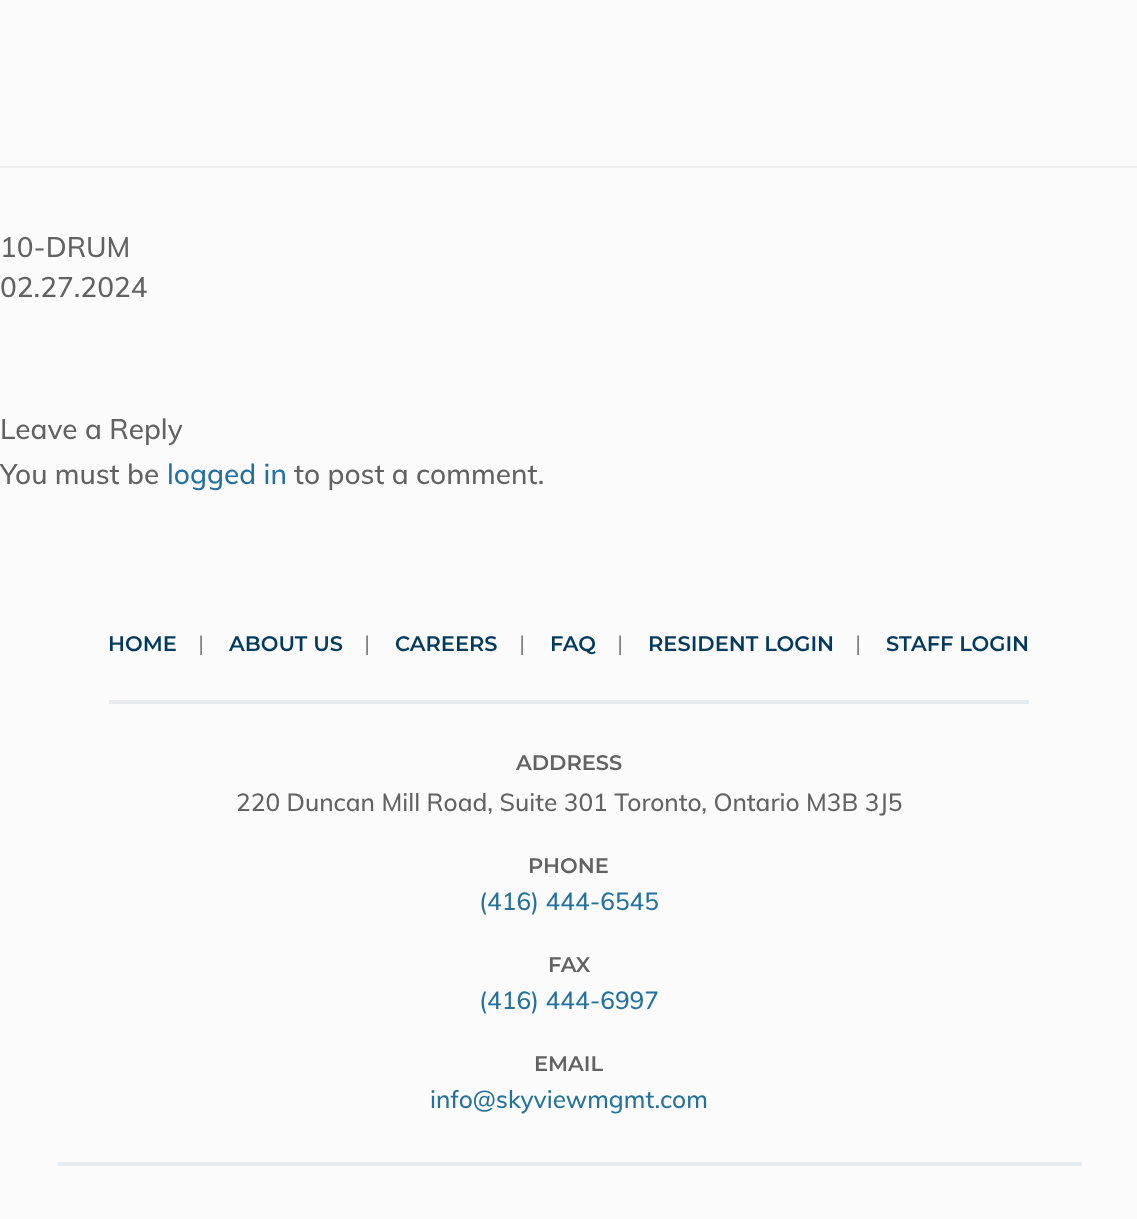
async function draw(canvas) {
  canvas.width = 1137
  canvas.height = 1219
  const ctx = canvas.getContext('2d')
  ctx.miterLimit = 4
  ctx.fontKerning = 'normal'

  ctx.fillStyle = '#fbfbfb'
  ctx.fillRect(0, 0, 1137, 1219)
  ctx.fillStyle = '#efefef'
  ctx.fillRect(0, 166, 1137, 2)
  ctx.font = '500 28px Muli'
  ctx.fillStyle = '#626262'
  ctx.fillText('10-DRUM', 0, 257)
  ctx.fillText('02.27.2024', 0, 297)
  ctx.fillText('Leave a Reply', 0, 439)
  ctx.fillText('You must be', 0, 484)
  ctx.fillStyle = '#25719e'
  ctx.fillText('logged in', 167, 484)
  ctx.fillStyle = '#626262'
  ctx.fillText('to post a comment.', 294, 484)
  ctx.font = '600 21px Montserrat'
  ctx.fillStyle = '#003a5d'
  ctx.fillText('HOME', 108, 651)
  ctx.font = '21px Montserrat'
  ctx.fillStyle = '#626262'
  ctx.fillText('|', 198, 651)
  ctx.font = '600 21px Montserrat'
  ctx.fillStyle = '#003a5d'
  ctx.fillText('ABOUT US', 229, 651)
  ctx.font = '21px Montserrat'
  ctx.fillStyle = '#626262'
  ctx.fillText('|', 364, 651)
  ctx.font = '600 21px Montserrat'
  ctx.fillStyle = '#003a5d'
  ctx.fillText('CAREERS', 395, 651)
  ctx.font = '21px Montserrat'
  ctx.fillStyle = '#626262'
  ctx.fillText('|', 519, 651)
  ctx.font = '600 21px Montserrat'
  ctx.fillStyle = '#003a5d'
  ctx.fillText('FAQ', 550, 651)
  ctx.font = '21px Montserrat'
  ctx.fillStyle = '#626262'
  ctx.fillText('|', 617, 651)
  ctx.font = '600 21px Montserrat'
  ctx.fillStyle = '#003a5d'
  ctx.fillText('RESIDENT LOGIN', 648, 651)
  ctx.font = '21px Montserrat'
  ctx.fillStyle = '#626262'
  ctx.fillText('|', 855, 651)
  ctx.font = '600 21px Montserrat'
  ctx.fillStyle = '#003a5d'
  ctx.fillText('STAFF LOGIN', 886, 651)
  ctx.fillStyle = '#e5ebef'
  ctx.fillRect(109, 700, 920, 4)
  ctx.fillStyle = '#626262'
  ctx.fillText('ADDRESS', 516, 770)
  ctx.font = '500 24.5px Muli'
  ctx.fillText('220 Duncan Mill Road, Suite 301 Toronto, Ontario M3B 3J5', 236, 811)
  ctx.font = '600 21px Montserrat'
  ctx.fillText('PHONE', 528, 873)
  ctx.font = '500 24.5px Muli'
  ctx.fillStyle = '#25719e'
  ctx.fillText('(416) 444-6545', 479, 910)
  ctx.font = '600 21px Montserrat'
  ctx.fillStyle = '#626262'
  ctx.fillText('FAX', 548, 972)
  ctx.font = '500 24.5px Muli'
  ctx.fillStyle = '#25719e'
  ctx.fillText('(416) 444-6997', 479, 1009)
  ctx.font = '600 21px Montserrat'
  ctx.fillStyle = '#626262'
  ctx.fillText('EMAIL', 534, 1071)
  ctx.font = '500 24.5px Muli'
  ctx.fillStyle = '#25719e'
  ctx.fillText('info@skyviewmgmt.com', 430, 1108)
  ctx.fillStyle = '#e5ebef'
  ctx.fillRect(58, 1162, 1024, 4)
}

draw(document.querySelector('canvas'))
